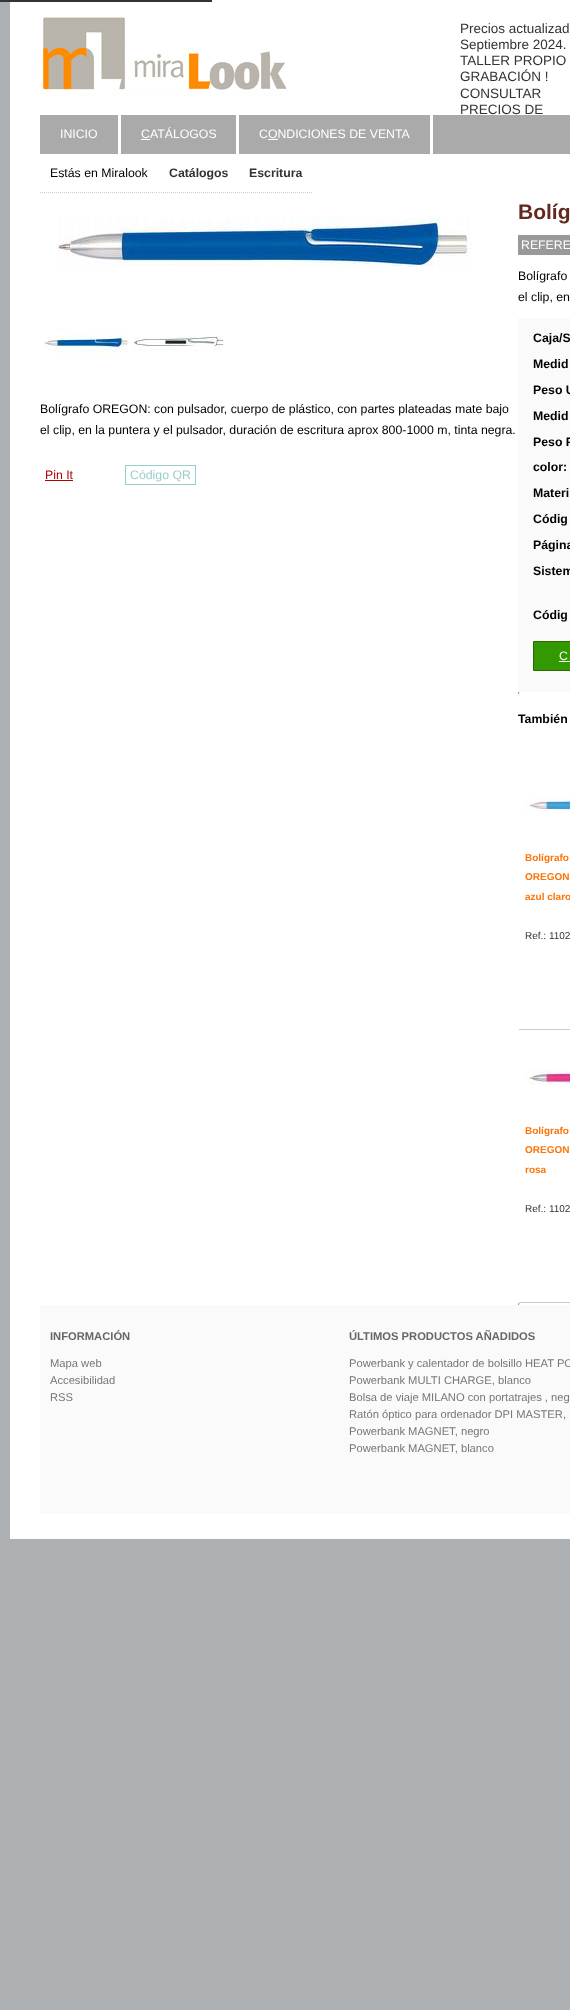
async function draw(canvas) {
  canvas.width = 570
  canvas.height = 2010
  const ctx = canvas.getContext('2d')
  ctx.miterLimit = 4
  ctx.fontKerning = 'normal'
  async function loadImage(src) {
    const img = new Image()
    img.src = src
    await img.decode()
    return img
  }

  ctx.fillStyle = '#adb0b2'
  ctx.fillRect(0, 0, 570, 2010)
  ctx.fillStyle = '#fff'
  ctx.fillRect(10, 0, 560, 1539)
  ctx.fillStyle = '#333'
  ctx.fillRect(0, 0, 212, 2)
  ctx.drawImage(await loadImage('image0.png'), 40, 16, 248, 80)
  ctx.font = '13.5px Liberation Sans'
  ctx.fillText('Precios actualizad', 460, 33)
  ctx.fillText('Septiembre 2024.', 460, 49)
  ctx.fillText('TALLER PROPIO', 460, 65)
  ctx.fillText('GRABACIÓN !', 460, 81)
  ctx.fillText('CONSULTAR', 460, 98)
  ctx.fillText('PRECIOS DE', 460, 114)
  ctx.fillStyle = '#aaa'
  ctx.fillRect(40, 115, 530, 39)
  ctx.fillStyle = '#fff'
  ctx.fillRect(118, 115, 3, 39)
  ctx.font = '12.3px Liberation Sans'
  ctx.fillText('INICIO', 60, 138)
  ctx.fillRect(236, 115, 3, 39)
  ctx.fillText('CATÁLOGOS', 141, 138)
  ctx.fillRect(141, 139, 9, 1)
  ctx.fillRect(430, 115, 3, 39)
  ctx.fillText('CONDICIONES DE VENTA', 259, 138)
  ctx.fillRect(268, 139, 10, 1)
  ctx.fillStyle = '#000'
  ctx.fillText('Estás en Miralook', 50, 177)
  ctx.beginPath()
  ctx.moveTo(40, 192.5)
  ctx.lineTo(158, 192.5)
  ctx.strokeStyle = '#ccc'
  ctx.setLineDash([1, 1])
  ctx.stroke()
  ctx.font = 'bold 12.3px Liberation Sans'
  ctx.fillStyle = '#333'
  ctx.fillText('Catálogos', 169, 177)
  ctx.beginPath()
  ctx.moveTo(159, 192.5)
  ctx.lineTo(238, 192.5)
  ctx.stroke()
  ctx.fillText('Escritura', 249, 177)
  ctx.beginPath()
  ctx.moveTo(239, 192.5)
  ctx.lineTo(313, 192.5)
  ctx.stroke()
  ctx.drawImage(await loadImage('image1.png'), 56, 217, 416, 50)
  ctx.drawImage(await loadImage('image2.png'), 44, 328, 85, 32)
  ctx.drawImage(await loadImage('image3.png'), 133, 336, 90, 16)
  ctx.font = '12.3px Liberation Sans'
  ctx.fillStyle = '#000'
  ctx.fillText('Bolígrafo OREGON: con pulsador, cuerpo de plástico, con partes plateadas mate bajo', 40, 413)
  ctx.fillText('el clip, en la puntera y el pulsador, duración de escritura aprox 800-1000 m, tinta negra.', 40, 434)
  ctx.fillStyle = '#b00009'
  ctx.fillText('Pin It', 45, 479)
  ctx.fillRect(45, 480, 28, 1)
  ctx.strokeStyle = '#9cc'
  ctx.setLineDash([])
  ctx.strokeRect(125.5, 465.5, 70, 19)
  ctx.fillStyle = '#9cc'
  ctx.fillText('Código QR', 130, 479)
  ctx.font = 'bold 21px Liberation Sans'
  ctx.fillStyle = '#63291e'
  ctx.fillText('Bolíg', 518, 219)
  ctx.fillStyle = '#999'
  ctx.fillRect(518, 235, 52, 20)
  ctx.font = '12.3px Liberation Sans'
  ctx.fillStyle = '#fff'
  ctx.fillText('REFERE', 521, 249)
  ctx.fillStyle = '#000'
  ctx.fillText('Bolígrafo', 518, 280)
  ctx.fillText('el clip, en', 518, 301)
  ctx.fillStyle = '#fafafa'
  ctx.fillRect(518, 318, 52, 374)
  ctx.font = 'bold 12.3px Liberation Sans'
  ctx.fillStyle = '#000'
  ctx.fillText('Caja/S', 533, 342)
  ctx.fillText('Medid', 533, 368)
  ctx.fillText('Peso U', 533, 394)
  ctx.fillText('Medid', 533, 420)
  ctx.fillText('Peso P', 533, 446)
  ctx.fillText('color:', 533, 471)
  ctx.fillText('Materi', 533, 497)
  ctx.fillText('Códig', 533, 523)
  ctx.fillText('Página', 533, 549)
  ctx.fillText('Sistem', 533, 575)
  ctx.fillText('Códig', 533, 619)
  ctx.fillStyle = '#390'
  ctx.beginPath()
  ctx.rect(533.5, 641.5, 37, 29)
  ctx.fill()
  ctx.strokeStyle = '#360'
  ctx.stroke()
  ctx.font = '12.3px Liberation Sans'
  ctx.fillStyle = '#fff'
  ctx.fillText('C', 559, 660)
  ctx.fillRect(559, 661, 11, 1)
  ctx.fillStyle = '#eee'
  ctx.fillRect(519, 692, 1, 2)
  ctx.fillRect(518, 693, 2, 1)
  ctx.fillStyle = '#9f9f9f'
  ctx.fillRect(518, 692, 1, 2)
  ctx.font = 'bold 12.3px Liberation Sans'
  ctx.fillStyle = '#000'
  ctx.fillText('También', 518, 723)
  ctx.fillStyle = '#ccc'
  ctx.fillRect(518, 1029, 52, 1)
  ctx.fillStyle = '#fff'
  ctx.fillRect(518, 1029, 1, 1)
  ctx.drawImage(await loadImage('image4.png'), 525, 796, 45, 16)
  ctx.font = 'bold 10px Liberation Sans'
  ctx.fillStyle = '#fd7509'
  ctx.fillText('Bolígrafo', 525, 861)
  ctx.fillText('OREGON', 525, 880)
  ctx.fillText('azul claro', 525, 900)
  ctx.font = '10px Liberation Sans'
  ctx.fillStyle = '#333'
  ctx.fillText('Ref.: 1102', 525, 939)
  ctx.fillStyle = '#ccc'
  ctx.fillRect(518, 1302, 52, 1)
  ctx.fillStyle = '#fff'
  ctx.fillRect(518, 1302, 1, 1)
  ctx.drawImage(await loadImage('image5.png'), 525, 1069, 45, 16)
  ctx.font = 'bold 10px Liberation Sans'
  ctx.fillStyle = '#fd7509'
  ctx.fillText('Bolígrafo', 525, 1134)
  ctx.fillText('OREGON', 525, 1153)
  ctx.fillText('rosa', 525, 1173)
  ctx.font = '10px Liberation Sans'
  ctx.fillStyle = '#333'
  ctx.fillText('Ref.: 1102', 525, 1212)
  ctx.fillStyle = '#eee'
  ctx.fillRect(519, 1303, 1, 2)
  ctx.fillRect(518, 1304, 2, 1)
  ctx.fillStyle = '#9f9f9f'
  ctx.fillRect(518, 1303, 1, 2)
  ctx.fillStyle = '#fafafa'
  ctx.fillRect(40, 1305, 530, 209)
  ctx.font = 'bold 11.2px Liberation Sans'
  ctx.fillStyle = '#666'
  ctx.fillText('INFORMACIÓN', 50, 1340)
  ctx.font = '11.2px Liberation Sans'
  ctx.fillStyle = '#767676'
  ctx.fillText('Mapa web', 50, 1367)
  ctx.fillText('Accesibilidad', 50, 1384)
  ctx.fillText('RSS', 50, 1401)
  ctx.font = 'bold 11.2px Liberation Sans'
  ctx.fillStyle = '#666'
  ctx.fillText('ÚLTIMOS PRODUCTOS AÑADIDOS', 349, 1340)
  ctx.font = '11.2px Liberation Sans'
  ctx.fillStyle = '#767676'
  ctx.fillText('Powerbank y calentador de bolsillo HEAT PO', 349, 1367)
  ctx.fillText('Powerbank MULTI CHARGE, blanco', 349, 1384)
  ctx.fillText('Bolsa de viaje MILANO con portatrajes , neg', 349, 1401)
  ctx.fillText('Ratón óptico para ordenador DPI MASTER,', 349, 1418)
  ctx.fillText('Powerbank MAGNET, negro', 349, 1435)
  ctx.fillText('Powerbank MAGNET, blanco', 349, 1452)
}

draw(document.querySelector('canvas'))
